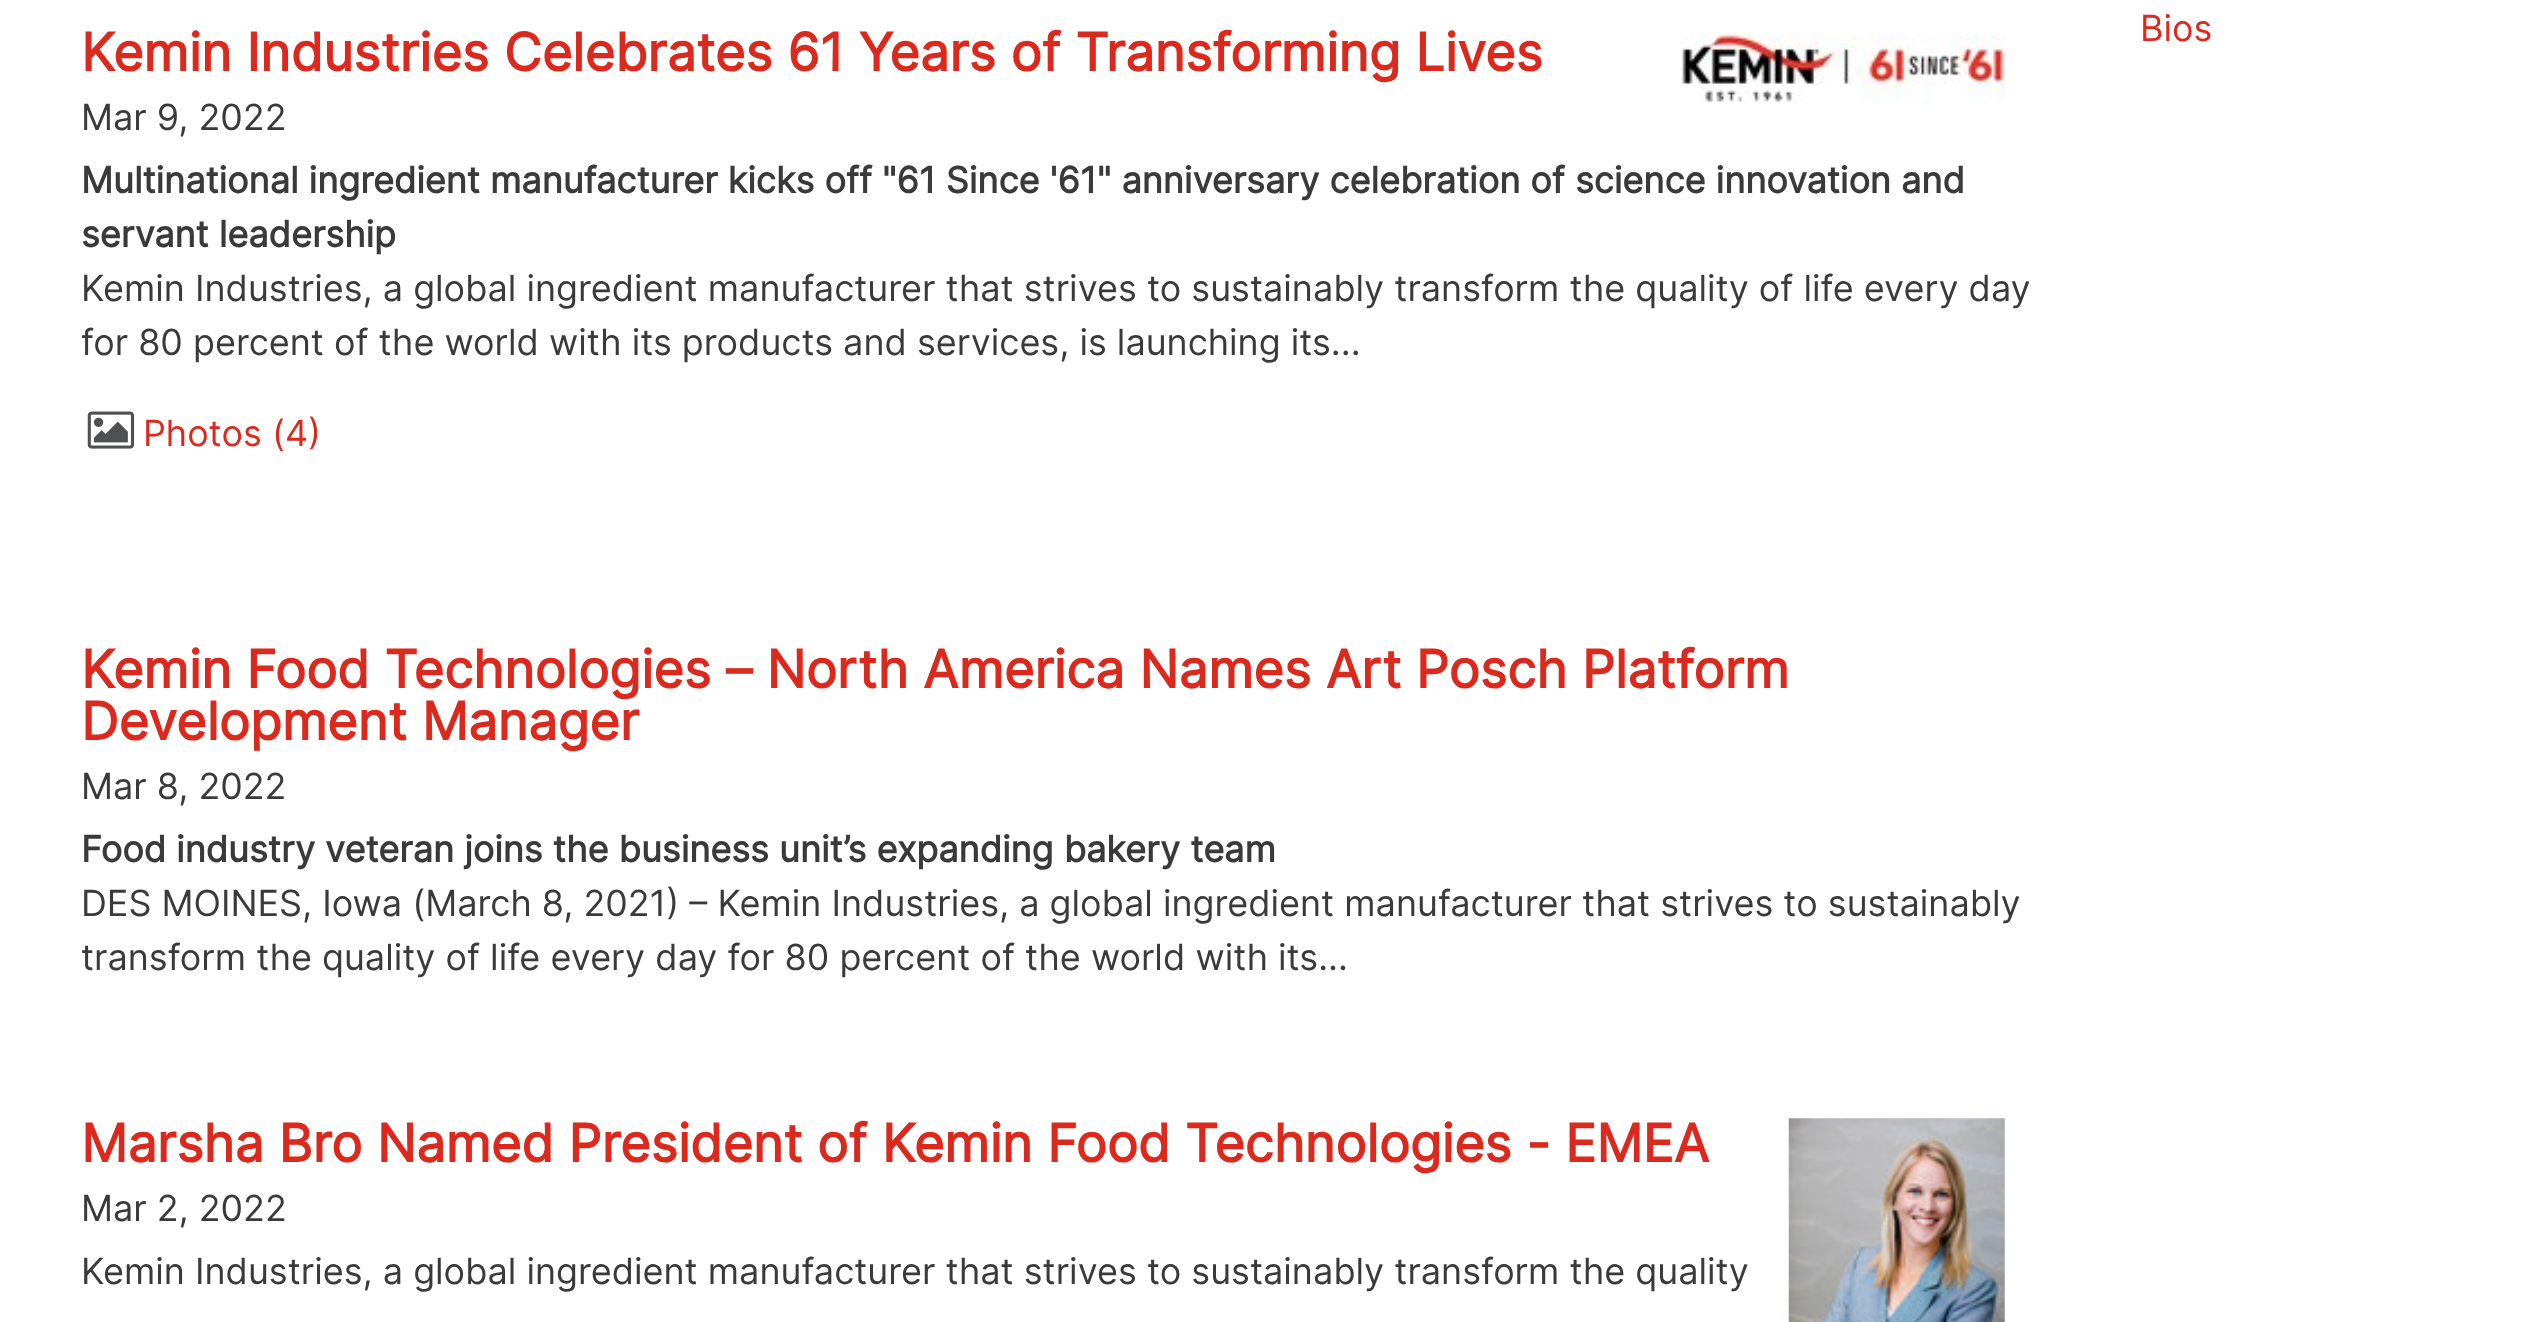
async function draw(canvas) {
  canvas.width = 2524
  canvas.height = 1322
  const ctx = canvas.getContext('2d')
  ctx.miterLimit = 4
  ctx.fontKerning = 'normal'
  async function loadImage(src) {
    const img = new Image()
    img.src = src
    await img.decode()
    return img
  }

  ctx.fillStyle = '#fff'
  ctx.fillRect(0, 0, 2524, 1322)
  ctx.font = '36px Inter'
  ctx.fillStyle = '#dc291e'
  ctx.fillText('Bios', 2140, 41)
  ctx.font = 'bold 52.2px Inter'
  ctx.fillText('Kemin Industries Celebrates 61 Years of Transforming Lives', 81, 71)
  ctx.font = '36px Inter'
  ctx.fillStyle = '#3a3a3a'
  ctx.fillText('Mar 9, 2022', 81, 130)
  ctx.font = 'bold 36px Inter'
  ctx.fillText('Multinational ingredient manufacturer kicks off "61 Since \'61" anniversary celebration of science innovation and', 81, 193)
  ctx.fillText('servant leadership', 81, 247)
  ctx.font = '36px Inter'
  ctx.fillText('Kemin Industries, a global ingredient manufacturer that strives to sustainably transform the quality of life every day', 81, 301)
  ctx.fillText('for 80 percent of the world with its products and services, is launching its...', 81, 355)
  ctx.drawImage(await loadImage('image0.png'), 87, 411, 48, 38)
  ctx.fillStyle = '#dc291e'
  ctx.fillText('Photos (4)', 143, 446)
  ctx.drawImage(await loadImage('image1.png'), 1681, 33, 324, 71)
  ctx.font = 'bold 52.2px Inter'
  ctx.fillText('Kemin Food Technologies – North America Names Art Posch Platform', 81, 688)
  ctx.fillText('Development Manager', 81, 740)
  ctx.font = '36px Inter'
  ctx.fillStyle = '#3a3a3a'
  ctx.fillText('Mar 8, 2022', 81, 799)
  ctx.font = 'bold 36px Inter'
  ctx.fillText('Food industry veteran joins the business unit’s expanding bakery team', 81, 862)
  ctx.font = '36px Inter'
  ctx.fillText('DES MOINES, Iowa (March 8, 2021) – Kemin Industries, a global ingredient manufacturer that strives to sustainably', 81, 916)
  ctx.fillText('transform the quality of life every day for 80 percent of the world with its...', 81, 970)
  ctx.font = 'bold 52.2px Inter'
  ctx.fillStyle = '#dc291e'
  ctx.fillText('Marsha Bro Named President of Kemin Food Technologies - EMEA', 81, 1162)
  ctx.font = '36px Inter'
  ctx.fillStyle = '#3a3a3a'
  ctx.fillText('Mar 2, 2022', 81, 1221)
  ctx.fillText('Kemin Industries, a global ingredient manufacturer that strives to sustainably transform the quality', 81, 1284)
  ctx.drawImage(await loadImage('image2.png'), 1788, 1118, 217, 204)
}

draw(document.querySelector('canvas'))
